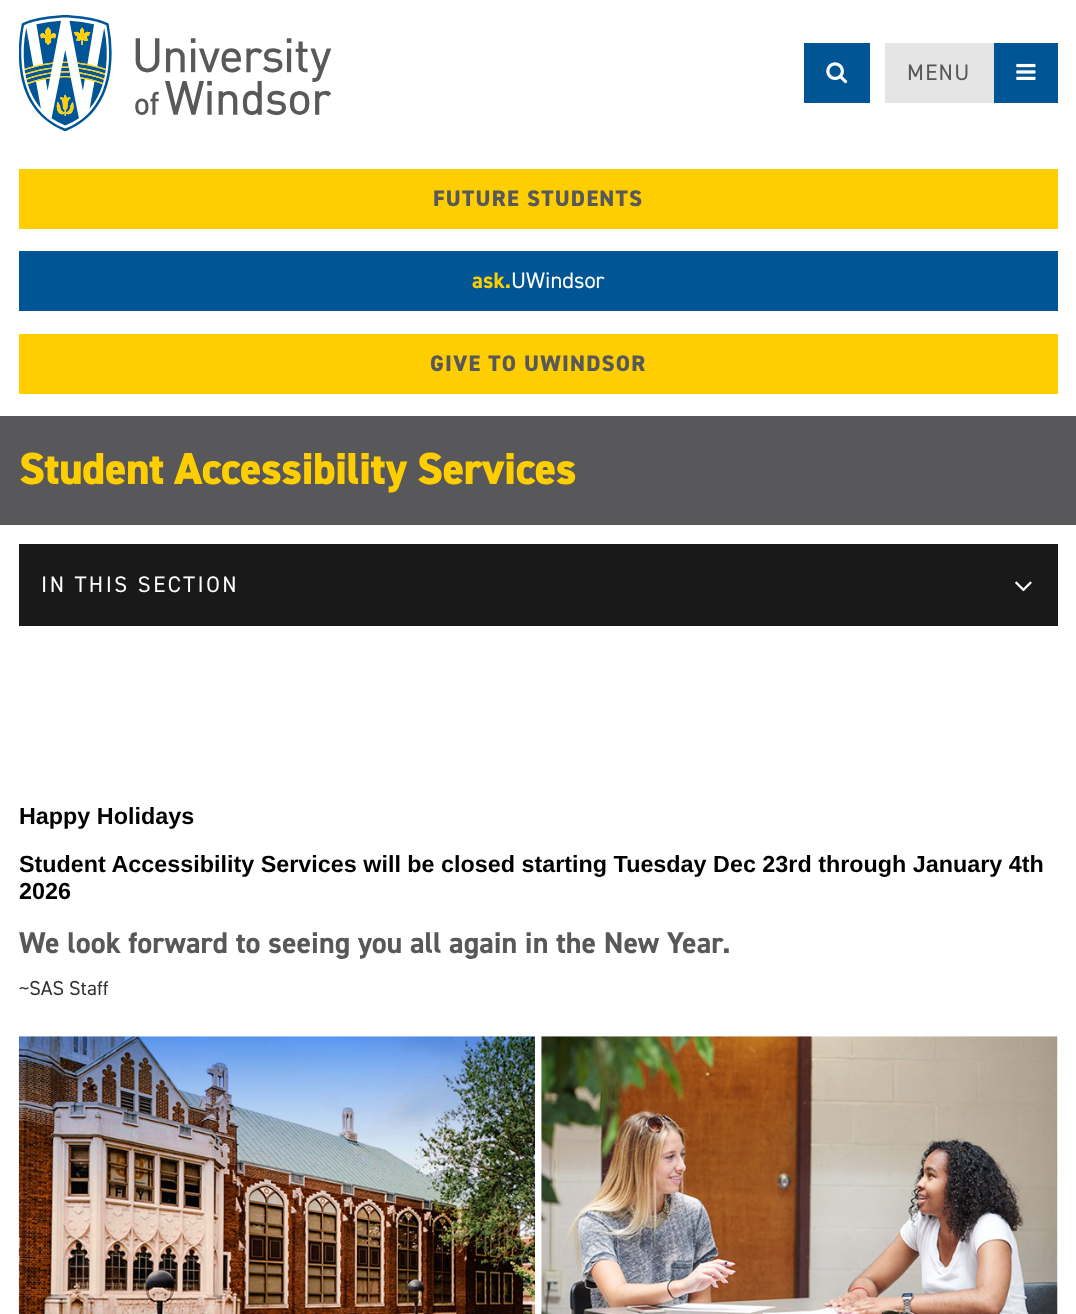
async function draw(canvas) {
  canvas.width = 1076
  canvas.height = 1314
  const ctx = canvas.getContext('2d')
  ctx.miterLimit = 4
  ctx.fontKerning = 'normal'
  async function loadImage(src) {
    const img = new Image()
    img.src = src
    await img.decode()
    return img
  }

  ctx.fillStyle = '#fff'
  ctx.fillRect(0, 0, 1076, 1314)
  ctx.drawImage(await loadImage('image0.png'), 19, 15, 312, 116)
  ctx.fillStyle = '#005595'
  ctx.fillRect(804, 43, 66, 60)
  ctx.drawImage(await loadImage('image1.png'), 826, 62, 22, 22)
  ctx.fillStyle = '#e5e5e5'
  ctx.fillRect(885, 43, 109, 60)
  ctx.letterSpacing = '1.25px'
  ctx.font = '22.5px "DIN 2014"'
  ctx.fillStyle = '#58585b'
  ctx.fillText('MENU', 907, 80)
  ctx.fillStyle = '#005595'
  ctx.fillRect(994, 43, 64, 60)
  ctx.drawImage(await loadImage('image2.png'), 1016, 63, 20, 17)
  ctx.fillStyle = '#ffce00'
  ctx.fillRect(19, 169, 1039, 60)
  ctx.font = '800 22.5px "DIN 2014"'
  ctx.fillStyle = '#58585b'
  ctx.fillText('FUTURE STUDENTS', 433, 206)
  ctx.fillStyle = '#005595'
  ctx.fillRect(19, 251, 1039, 60)
  ctx.letterSpacing = '0px'
  ctx.font = 'bold 22.5px "DIN 2014"'
  ctx.fillStyle = '#ffce00'
  ctx.fillText('ask.', 472, 288)
  ctx.font = '22.5px "DIN 2014"'
  ctx.fillStyle = '#fff'
  ctx.fillText('UWindsor', 511, 288)
  ctx.fillStyle = '#ffce00'
  ctx.fillRect(19, 334, 1039, 60)
  ctx.letterSpacing = '1.25px'
  ctx.font = '800 22.5px "DIN 2014"'
  ctx.fillStyle = '#58585b'
  ctx.fillText('GIVE TO UWINDSOR', 430, 371)
  ctx.fillRect(0, 416, 1076, 109)
  ctx.letterSpacing = '-0.6px'
  ctx.font = '800 45px "DIN 2014"'
  ctx.fillStyle = '#ffce00'
  ctx.fillText('Student Accessibility Services', 19, 484)
  ctx.fillStyle = '#19191a'
  ctx.fillRect(19, 544, 1039, 82)
  ctx.letterSpacing = '2.5px'
  ctx.font = '22.5px "DIN 2014"'
  ctx.fillStyle = '#fff'
  ctx.fillText('IN THIS SECTION', 41, 592)
  ctx.drawImage(await loadImage('image3.png'), 1015, 581, 17, 11)
  ctx.letterSpacing = '0px'
  ctx.font = 'bold 23.35px Liberation Sans'
  ctx.fillStyle = '#000'
  ctx.fillText('Happy Holidays', 19, 824)
  ctx.fillText('Student Accessibility Services will be closed starting Tuesday Dec 23rd through January 4th', 19, 872)
  ctx.fillText('2026', 19, 899)
  ctx.font = 'bold 30px "DIN 2014"'
  ctx.fillStyle = '#58585b'
  ctx.fillText('We look forward to seeing you all again in the New Year.', 19, 953)
  ctx.font = '20.25px "DIN 2014"'
  ctx.fillStyle = '#333'
  ctx.fillText('~SAS Staff', 19, 995)
  ctx.drawImage(await loadImage('image4.png'), 18, 1036, 517, 278)
  ctx.drawImage(await loadImage('image5.png'), 541, 1036, 517, 278)
}

draw(document.querySelector('canvas'))
